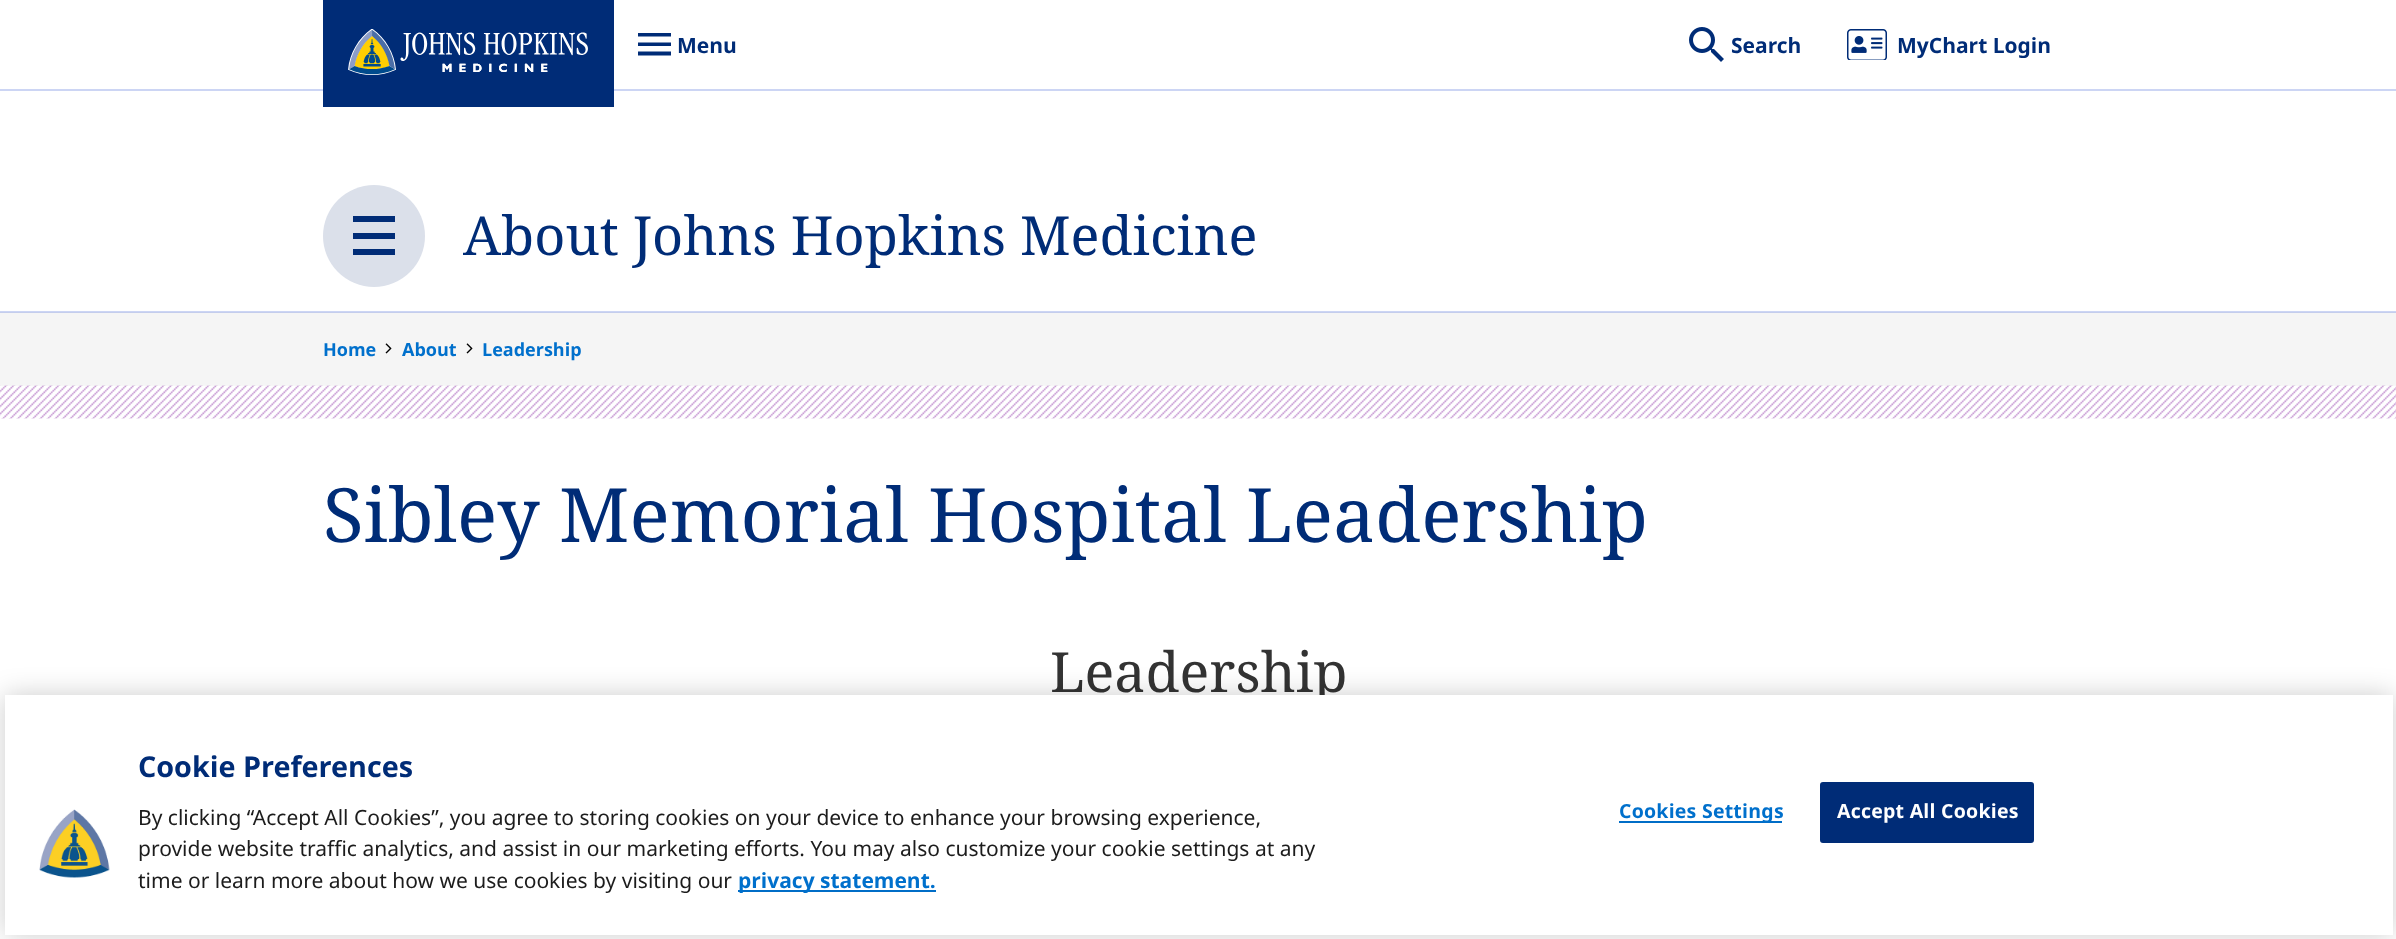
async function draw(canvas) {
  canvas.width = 2396
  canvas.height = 939
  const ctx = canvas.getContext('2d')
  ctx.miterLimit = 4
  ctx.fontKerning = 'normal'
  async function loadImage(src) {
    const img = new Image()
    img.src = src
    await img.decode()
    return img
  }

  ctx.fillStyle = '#fff'
  ctx.fillRect(0, 0, 2396, 939)
  ctx.fillStyle = '#ccd5f4'
  ctx.fillRect(0, 311, 2396, 1)
  ctx.fillRect(0, 89, 2396, 2)
  ctx.fillStyle = '#002c77'
  ctx.fillRect(323, 0, 291, 107)
  ctx.drawImage(await loadImage('image0.png'), 348, 29, 240, 46)
  ctx.save()
  ctx.beginPath()
  ctx.rect(638, 33, 33, 23)
  ctx.clip()
  ctx.beginPath()
  ctx.moveTo(637.5, 55.5)
  ctx.lineTo(671, 55.5)
  ctx.lineTo(671, 51.5)
  ctx.lineTo(637.5, 51.5)
  ctx.closePath()
  ctx.moveTo(637.5, 46)
  ctx.lineTo(671, 46)
  ctx.lineTo(671, 42.5)
  ctx.lineTo(637.5, 42.5)
  ctx.closePath()
  ctx.moveTo(637.5, 33)
  ctx.lineTo(637.5, 36.5)
  ctx.lineTo(671, 36.5)
  ctx.lineTo(671, 33)
  ctx.closePath()
  ctx.fill()
  ctx.restore()
  ctx.font = 'bold 21px Noto Sans'
  ctx.fillText('Menu', 677, 53)
  ctx.drawImage(await loadImage('image1.png'), 1689, 27, 35, 35)
  ctx.fillText('Search', 1731, 53)
  ctx.drawImage(await loadImage('image2.png'), 1847, 29, 40, 31)
  ctx.fillText('MyChart Login', 1897, 53)
  ctx.fillStyle = '#dbe0ea'
  ctx.beginPath()
  ctx.arc(374, 236, 51, 0, 2 * Math.PI)
  ctx.fill()
  ctx.fillStyle = '#002c77'
  ctx.fillRect(353, 216, 42, 6)
  ctx.fillRect(353, 233, 42, 6)
  ctx.fillRect(353, 249, 42, 6)
  ctx.font = '54px Noto Serif'
  ctx.fillText('About Johns Hopkins Medicine', 463, 255)
  ctx.fillStyle = '#f5f5f5'
  ctx.fillRect(0, 313, 2396, 73)
  ctx.fillStyle = '#c4cdec'
  ctx.fillRect(0, 312, 2396, 1)
  ctx.font = 'bold 18px Noto Sans'
  ctx.fillStyle = '#0070cc'
  ctx.fillText('Home', 323, 356)
  ctx.drawImage(await loadImage('image3.png'), 385, 343, 7, 11)
  ctx.fillText('About', 402, 356)
  ctx.drawImage(await loadImage('image3.png'), 466, 343, 7, 11)
  ctx.fillText('Leadership', 482, 356)
  ctx.drawImage(await loadImage('image4.png'), 0, 385, 2396, 34)
  ctx.font = '75px Noto Serif'
  ctx.fillStyle = '#002c77'
  ctx.fillText('Sibley Memorial Hospital Leadership', 323, 542)
  ctx.font = '55.5px Noto Serif'
  ctx.fillStyle = '#333'
  ctx.fillText('Leadership', 1050, 692)
  ctx.fillStyle = '#00000033'
  ctx.filter = 'blur(13.5px)'
  ctx.beginPath()
  ctx.rect(5, 695, 2388, 240)
  ctx.fill()
  ctx.filter = 'none'
  ctx.fillStyle = '#fff'
  ctx.fillRect(5, 695, 2388, 240)
  ctx.drawImage(await loadImage('image5.png'), 39, 809, 71, 69)
  ctx.font = 'bold 28.75px Noto Sans'
  ctx.fillStyle = '#002c77'
  ctx.fillText('Cookie Preferences', 138, 777)
  ctx.font = '21px Noto Sans'
  ctx.fillStyle = '#1c1c1c'
  ctx.fillText('By clicking “Accept All Cookies”, you agree to storing cookies on your device to enhance your browsing experience,', 138, 825)
  ctx.fillText('provide website traffic analytics, and assist in our marketing efforts. You may also customize your cookie settings at any', 138, 856)
  ctx.fillText('time or learn more about how we use cookies by visiting our', 138, 888)
  ctx.fillStyle = '#006dc7'
  ctx.fillRect(738, 890, 198, 2)
  ctx.font = 'bold 21px Noto Sans'
  ctx.fillStyle = '#0070cc'
  ctx.fillText('privacy statement.', 738, 888)
  ctx.fillStyle = '#006dc7'
  ctx.fillRect(1619, 821, 163, 2)
  ctx.letterSpacing = '0.25px'
  ctx.font = 'bold 19.5px Noto Sans'
  ctx.fillStyle = '#0070cc'
  ctx.fillText('Cookies Settings', 1619, 818)
  ctx.fillStyle = '#002c77'
  ctx.beginPath()
  ctx.roundRect(1821, 783, 212, 59, 2)
  ctx.fill()
  ctx.strokeStyle = '#002c77'
  ctx.lineWidth = 2
  ctx.stroke()
  ctx.fillStyle = '#fff'
  ctx.fillText('Accept All Cookies', 1837, 818)
}

draw(document.querySelector('canvas'))
